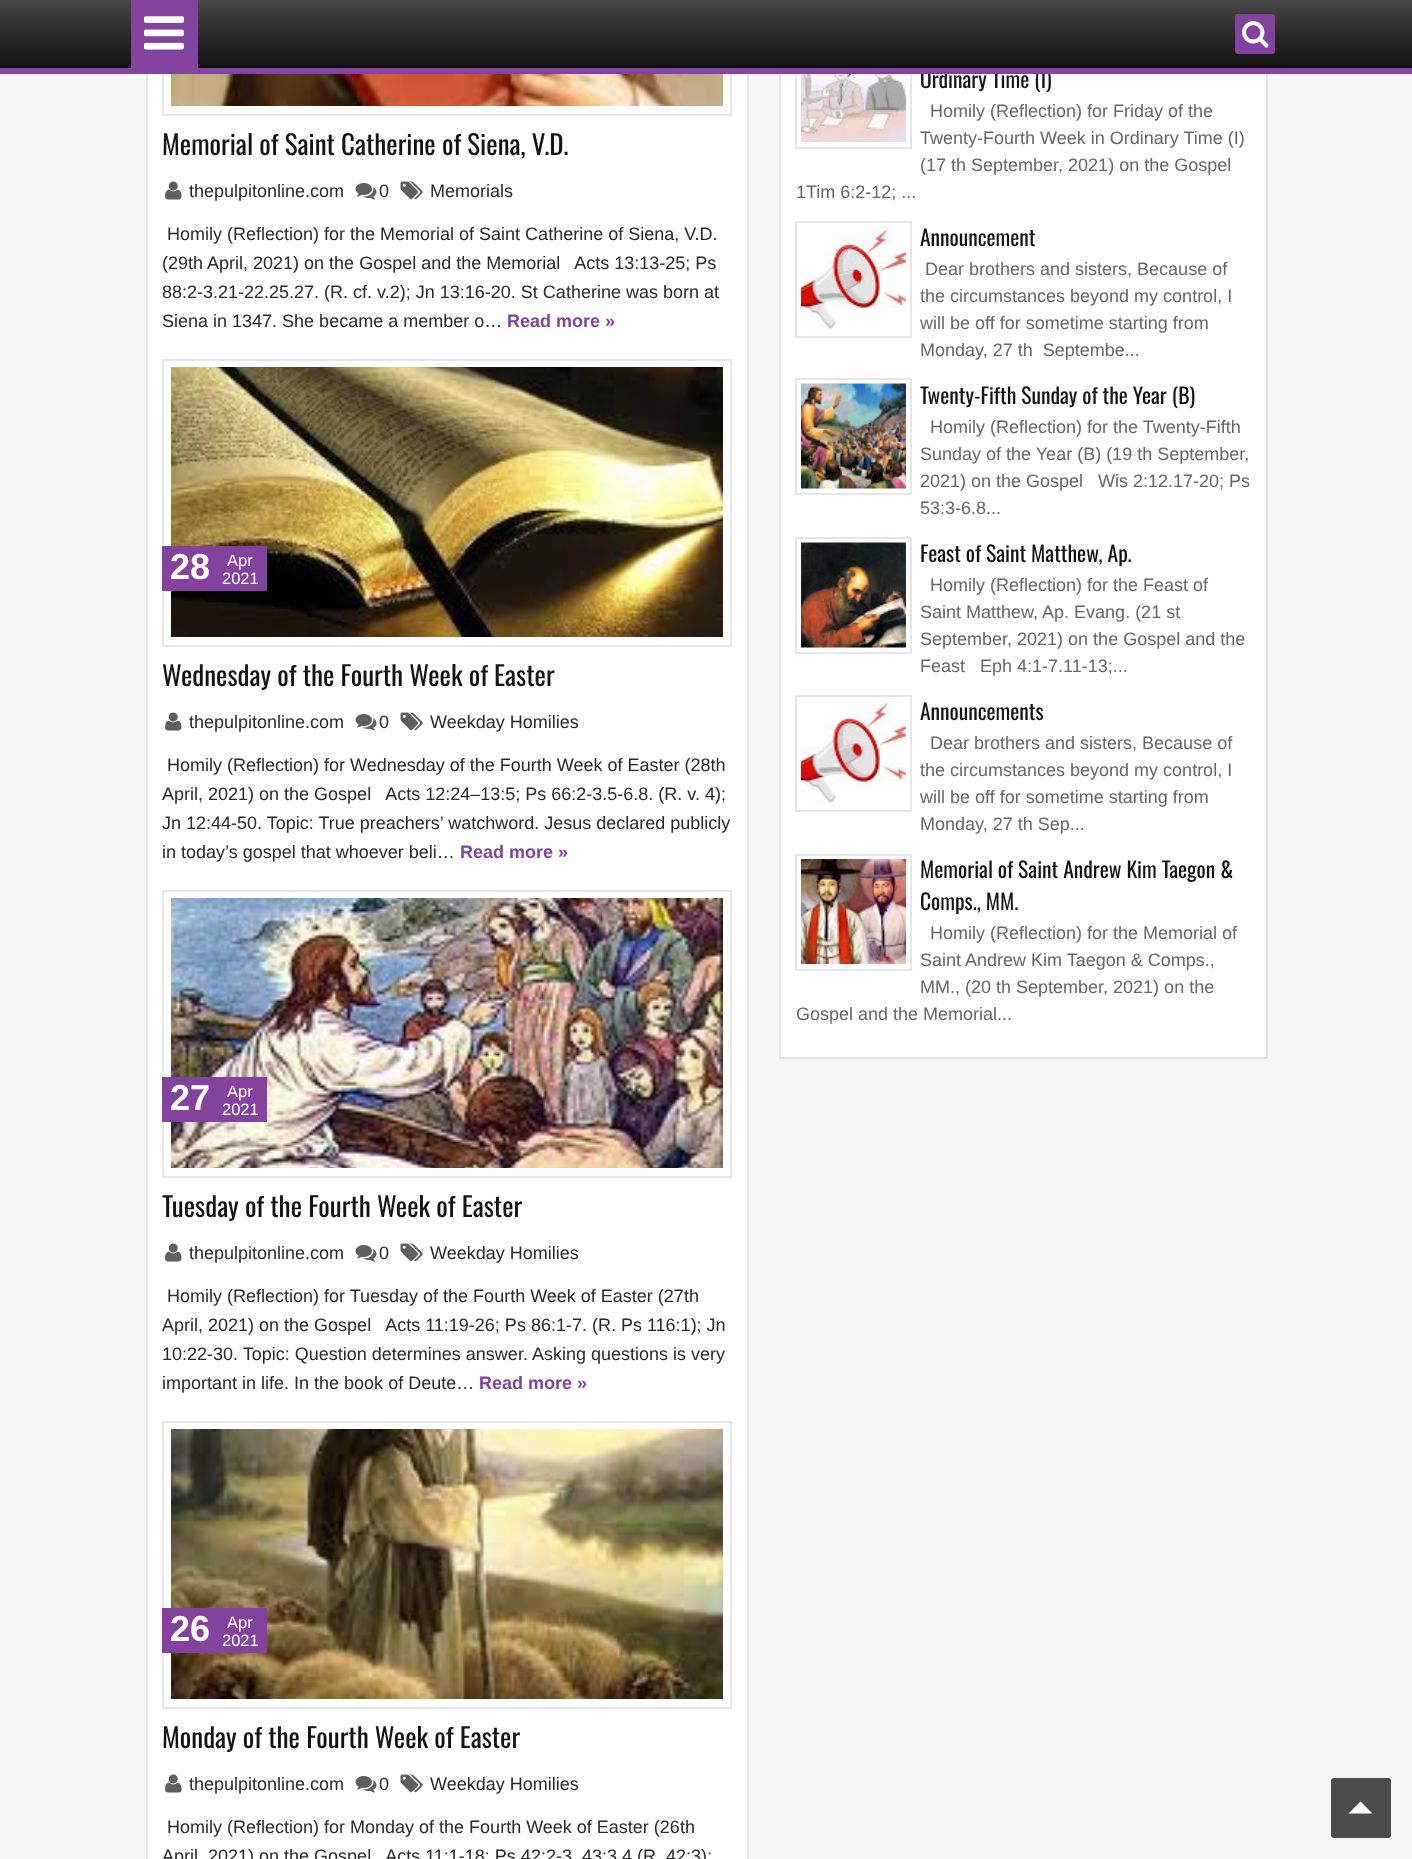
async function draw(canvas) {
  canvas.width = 1412
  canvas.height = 1859
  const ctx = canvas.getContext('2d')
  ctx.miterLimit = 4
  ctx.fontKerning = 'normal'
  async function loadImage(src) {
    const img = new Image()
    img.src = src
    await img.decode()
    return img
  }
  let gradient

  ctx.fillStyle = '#f5f5f5'
  ctx.fillRect(0, 0, 1412, 1859)
  ctx.fillStyle = '#fff'
  ctx.fillRect(148, 74, 599, 1785)
  ctx.strokeStyle = '#e6e6e6'
  ctx.lineWidth = 2
  ctx.strokeRect(147, -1, 601, 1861)
  ctx.strokeRect(163, -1, 568, 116)
  ctx.fillRect(781, 74, 485, 983)
  ctx.strokeRect(780, -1, 487, 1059)
  ctx.strokeRect(796, 33, 115, 115)
  gradient = ctx.createLinearGradient(707, 0, 707, 68)
  gradient.addColorStop(0, '#474747')
  gradient.addColorStop(0.5, '#292929')
  gradient.addColorStop(1, '#131313')
  ctx.fillStyle = gradient
  ctx.fillRect(0, 0, 1412, 68)
  ctx.font = '21.6px Oswald'
  ctx.fillStyle = '#131313'
  ctx.fillText('Ordinary Time (I)', 920, 88)
  ctx.fillStyle = '#83429d'
  ctx.fillRect(0, 68, 1412, 6)
  ctx.fillRect(131, 0, 67, 68)
  ctx.drawImage(await loadImage('image0.png'), 144, 16, 40, 34)
  ctx.beginPath()
  ctx.roundRect(1235, 14, 40, 40, 3)
  ctx.fill()
  ctx.drawImage(await loadImage('image1.png'), 1242, 21, 27, 27)
  ctx.drawImage(await loadImage('image2.png'), 171, 74, 552, 32)
  ctx.font = '27px Oswald'
  ctx.fillStyle = '#131313'
  ctx.fillText('Memorial of Saint Catherine of Siena, V.D.', 162, 155)
  ctx.drawImage(await loadImage('image3.png'), 165, 181, 17, 19)
  ctx.font = '18px Liberation Sans'
  ctx.fillStyle = '#292929'
  ctx.fillText('thepulpitonline.com', 189, 197)
  ctx.drawImage(await loadImage('image4.png'), 355, 183, 22, 17)
  ctx.fillText('0', 379, 197)
  ctx.drawImage(await loadImage('image5.png'), 400, 181, 23, 19)
  ctx.fillText('Memorials', 430, 197)
  ctx.fillText('Homily (Reflection) for the Memorial of Saint Catherine of Siena, V.D.', 167, 240)
  ctx.fillText('(29th April, 2021) on the Gospel and the Memorial   Acts 13:13-25; Ps', 162, 269)
  ctx.fillText('88:2-3.21-22.25.27. (R. cf. v.2); Jn 13:16-20. St Catherine was born at', 162, 298)
  ctx.fillText('Siena in 1347. She became a member o…', 162, 327)
  ctx.font = 'bold 18px Liberation Sans'
  ctx.fillStyle = '#83429d'
  ctx.fillText('Read more »', 507, 327)
  ctx.strokeRect(163, 360, 568, 286)
  ctx.drawImage(await loadImage('image6.png'), 171, 367, 552, 270)
  ctx.fillRect(162, 546, 105, 45)
  ctx.font = 'bold 36px Liberation Sans'
  ctx.fillStyle = '#fff'
  ctx.fillText('28', 170, 579)
  ctx.font = '16.5px Liberation Sans'
  ctx.fillText('Apr', 227, 566)
  ctx.fillText('2021', 222, 584)
  ctx.font = '27px Oswald'
  ctx.fillStyle = '#131313'
  ctx.fillText('Wednesday of the Fourth Week of Easter', 162, 686)
  ctx.drawImage(await loadImage('image3.png'), 165, 712, 17, 19)
  ctx.font = '18px Liberation Sans'
  ctx.fillStyle = '#292929'
  ctx.fillText('thepulpitonline.com', 189, 728)
  ctx.drawImage(await loadImage('image4.png'), 355, 714, 22, 17)
  ctx.fillText('0', 379, 728)
  ctx.drawImage(await loadImage('image5.png'), 400, 712, 23, 19)
  ctx.fillText('Weekday Homilies', 430, 728)
  ctx.fillText('Homily (Reflection) for Wednesday of the Fourth Week of Easter (28th', 167, 771)
  ctx.fillText('April, 2021) on the Gospel   Acts 12:24–13:5; Ps 66:2-3.5-6.8. (R. v. 4);', 162, 800)
  ctx.fillText('Jn 12:44-50. Topic: True preachers’ watchword. Jesus declared publicly', 162, 829)
  ctx.fillText('in today’s gospel that whoever beli…', 162, 858)
  ctx.font = 'bold 18px Liberation Sans'
  ctx.fillStyle = '#83429d'
  ctx.fillText('Read more »', 460, 858)
  ctx.strokeRect(163, 891, 568, 286)
  ctx.drawImage(await loadImage('image7.png'), 171, 898, 552, 270)
  ctx.fillRect(162, 1077, 105, 45)
  ctx.font = 'bold 36px Liberation Sans'
  ctx.fillStyle = '#fff'
  ctx.fillText('27', 170, 1110)
  ctx.font = '16.5px Liberation Sans'
  ctx.fillText('Apr', 227, 1097)
  ctx.fillText('2021', 222, 1115)
  ctx.font = '27px Oswald'
  ctx.fillStyle = '#131313'
  ctx.fillText('Tuesday of the Fourth Week of Easter', 162, 1217)
  ctx.drawImage(await loadImage('image3.png'), 165, 1243, 17, 19)
  ctx.font = '18px Liberation Sans'
  ctx.fillStyle = '#292929'
  ctx.fillText('thepulpitonline.com', 189, 1259)
  ctx.drawImage(await loadImage('image4.png'), 355, 1245, 22, 17)
  ctx.fillText('0', 379, 1259)
  ctx.drawImage(await loadImage('image5.png'), 400, 1243, 23, 19)
  ctx.fillText('Weekday Homilies', 430, 1259)
  ctx.fillText('Homily (Reflection) for Tuesday of the Fourth Week of Easter (27th', 167, 1302)
  ctx.fillText('April, 2021) on the Gospel   Acts 11:19-26; Ps 86:1-7. (R. Ps 116:1); Jn', 162, 1331)
  ctx.fillText('10:22-30. Topic: Question determines answer. Asking questions is very', 162, 1360)
  ctx.fillText('important in life. In the book of Deute…', 162, 1389)
  ctx.font = 'bold 18px Liberation Sans'
  ctx.fillStyle = '#83429d'
  ctx.fillText('Read more »', 479, 1389)
  ctx.strokeRect(163, 1422, 568, 286)
  ctx.drawImage(await loadImage('image8.png'), 171, 1429, 552, 270)
  ctx.fillRect(162, 1608, 105, 45)
  ctx.font = 'bold 36px Liberation Sans'
  ctx.fillStyle = '#fff'
  ctx.fillText('26', 170, 1641)
  ctx.font = '16.5px Liberation Sans'
  ctx.fillText('Apr', 227, 1628)
  ctx.fillText('2021', 222, 1646)
  ctx.font = '27px Oswald'
  ctx.fillStyle = '#131313'
  ctx.fillText('Monday of the Fourth Week of Easter', 162, 1748)
  ctx.drawImage(await loadImage('image3.png'), 165, 1774, 17, 19)
  ctx.font = '18px Liberation Sans'
  ctx.fillStyle = '#292929'
  ctx.fillText('thepulpitonline.com', 189, 1790)
  ctx.drawImage(await loadImage('image4.png'), 355, 1776, 22, 17)
  ctx.fillText('0', 379, 1790)
  ctx.drawImage(await loadImage('image5.png'), 400, 1774, 23, 19)
  ctx.fillText('Weekday Homilies', 430, 1790)
  ctx.fillText('Homily (Reflection) for Monday of the Fourth Week of Easter (26th', 167, 1833)
  ctx.fillText('April, 2021) on the Gospel   Acts 11:1-18; Ps 42:2-3. 43:3.4 (R. 42:3);', 162, 1862)
  ctx.drawImage(await loadImage('image9.png'), 801, 74, 105, 68)
  ctx.fillStyle = '#666'
  ctx.fillText('Homily (Reflection) for Friday of the', 930, 117)
  ctx.fillText('Twenty-Fourth Week in Ordinary Time (I)', 920, 144)
  ctx.fillText('(17 th September, 2021) on the Gospel', 920, 171)
  ctx.fillText('1Tim 6:2-12; ...', 796, 198)
  ctx.strokeRect(796, 222, 115, 115)
  ctx.drawImage(await loadImage('image10.png'), 801, 226, 105, 105)
  ctx.font = '21.6px Oswald'
  ctx.fillStyle = '#131313'
  ctx.fillText('Announcement', 920, 246)
  ctx.font = '18px Liberation Sans'
  ctx.fillStyle = '#666'
  ctx.fillText('Dear brothers and sisters, Because of', 925, 275)
  ctx.fillText('the circumstances beyond my control, I', 920, 302)
  ctx.fillText('will be off for sometime starting from', 920, 329)
  ctx.fillText('Monday, 27 th  Septembe...', 920, 356)
  ctx.strokeRect(796, 379, 115, 115)
  ctx.drawImage(await loadImage('image11.png'), 801, 383, 105, 106)
  ctx.font = '21.6px Oswald'
  ctx.fillStyle = '#131313'
  ctx.fillText('Twenty-Fifth Sunday of the Year (B)', 920, 404)
  ctx.font = '18px Liberation Sans'
  ctx.fillStyle = '#666'
  ctx.fillText('Homily (Reflection) for the Twenty-Fifth', 930, 433)
  ctx.fillText('Sunday of the Year (B) (19 th September,', 920, 460)
  ctx.fillText('2021) on the Gospel', 920, 487)
  ctx.fillText('Wis 2:12.17-20; Ps', 1098, 487)
  ctx.fillText('53:3-6.8...', 920, 514)
  ctx.strokeRect(796, 538, 115, 115)
  ctx.drawImage(await loadImage('image12.png'), 801, 542, 105, 106)
  ctx.font = '21.6px Oswald'
  ctx.fillStyle = '#131313'
  ctx.fillText('Feast of Saint Matthew, Ap.', 920, 562)
  ctx.font = '18px Liberation Sans'
  ctx.fillStyle = '#666'
  ctx.fillText('Homily (Reflection) for the Feast of', 930, 591)
  ctx.fillText('Saint Matthew, Ap. Evang. (21 st', 920, 618)
  ctx.fillText('September, 2021) on the Gospel and the', 920, 645)
  ctx.fillText('Feast', 920, 672)
  ctx.fillText('Eph 4:1-7.11-13;...', 980, 672)
  ctx.strokeRect(796, 696, 115, 115)
  ctx.drawImage(await loadImage('image10.png'), 801, 700, 105, 105)
  ctx.font = '21.6px Oswald'
  ctx.fillStyle = '#131313'
  ctx.fillText('Announcements', 920, 720)
  ctx.font = '18px Liberation Sans'
  ctx.fillStyle = '#666'
  ctx.fillText('Dear brothers and sisters, Because of', 930, 749)
  ctx.fillText('the circumstances beyond my control, I', 920, 776)
  ctx.fillText('will be off for sometime starting from', 920, 803)
  ctx.fillText('Monday, 27 th Sep...', 920, 830)
  ctx.strokeRect(796, 855, 115, 115)
  ctx.drawImage(await loadImage('image13.png'), 801, 859, 105, 105)
  ctx.font = '21.6px Oswald'
  ctx.fillStyle = '#131313'
  ctx.fillText('Memorial of Saint Andrew Kim Taegon &', 920, 878)
  ctx.fillText('Comps., MM.', 920, 910)
  ctx.font = '18px Liberation Sans'
  ctx.fillStyle = '#666'
  ctx.fillText('Homily (Reflection) for the Memorial of', 930, 939)
  ctx.fillText('Saint Andrew Kim Taegon & Comps.,', 920, 966)
  ctx.fillText('MM., (20 th September, 2021) on the', 920, 993)
  ctx.fillText('Gospel and the Memorial...', 796, 1020)
  ctx.fillStyle = '#4c4c4c'
  ctx.beginPath()
  ctx.roundRect(1331, 1778, 60, 60, 3)
  ctx.fill()
  ctx.fillStyle = '#fdfdfd'
  ctx.beginPath()
  ctx.moveTo(1372.5, 1813.5)
  ctx.lineTo(1348.5, 1813.5)
  ctx.lineTo(1360.5, 1801.5)
  ctx.closePath()
  ctx.fill()
}

draw(document.querySelector('canvas'))
